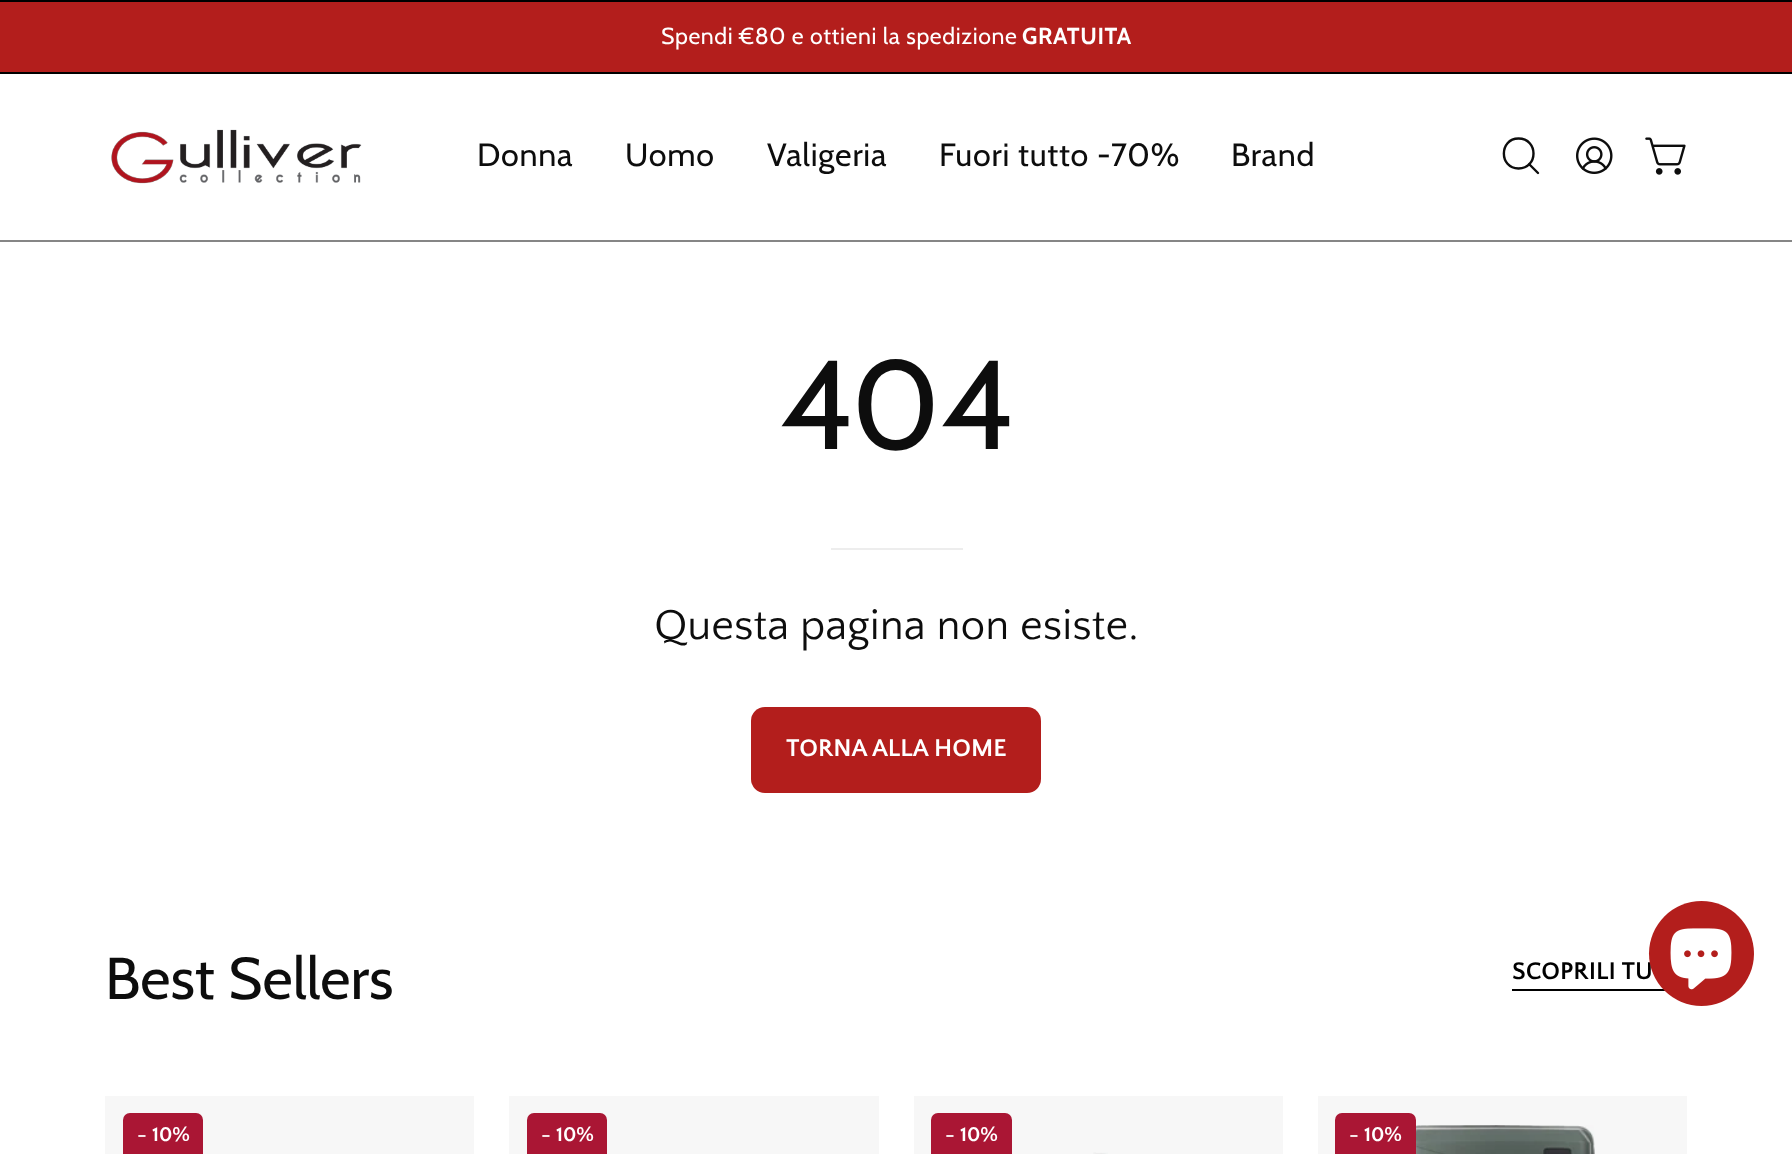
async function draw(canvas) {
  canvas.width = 1792
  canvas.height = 1154
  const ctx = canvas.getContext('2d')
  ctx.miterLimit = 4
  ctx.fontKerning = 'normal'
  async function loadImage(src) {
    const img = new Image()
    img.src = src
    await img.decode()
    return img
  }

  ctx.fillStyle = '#fff'
  ctx.fillRect(0, 0, 1792, 1154)
  ctx.fillStyle = '#b31e1c'
  ctx.fillRect(0, 2, 1792, 70)
  ctx.fillStyle = '#000'
  ctx.fillRect(0, 0, 1792, 2)
  ctx.fillRect(0, 72, 1792, 2)
  ctx.letterSpacing = '0.6px'
  ctx.font = '23.1px Cabin'
  ctx.fillStyle = '#fff'
  ctx.fillText('Spendi €80 e ottieni la spedizione', 661, 44)
  ctx.font = 'bold 23.1px Cabin'
  ctx.fillText('GRATUITA', 1022, 44)
  ctx.drawImage(await loadImage('image0.png'), 111, 129, 251, 55)
  ctx.letterSpacing = '0.75px'
  ctx.font = '32.25px Cabin'
  ctx.fillStyle = '#0d0d0d'
  ctx.fillText('Donna', 477, 166)
  ctx.fillText('Uomo', 625, 166)
  ctx.fillText('Valigeria', 767, 166)
  ctx.fillText('Fuori tutto -70%', 939, 166)
  ctx.fillText('Brand', 1231, 166)
  ctx.beginPath()
  ctx.moveTo(1518.5, 168.5)
  ctx.bezierCurveTo(1538.5, 168.5, 1538.5, 138.5, 1518.5, 138.5)
  ctx.bezierCurveTo(1499, 138.5, 1499, 168.5, 1518.5, 168.5)
  ctx.closePath()
  ctx.moveTo(1529, 164)
  ctx.lineTo(1538, 173)
  ctx.strokeStyle = '#0d0d0d'
  ctx.lineWidth = 2.4
  ctx.lineCap = 'round'
  ctx.lineJoin = 'round'
  ctx.stroke()
  ctx.drawImage(await loadImage('image1.png'), 1576, 137, 37, 37)
  ctx.drawImage(await loadImage('image2.png'), 1645, 137, 41, 38)
  ctx.fillStyle = '#868686'
  ctx.fillRect(0, 240, 1792, 2)
  ctx.letterSpacing = '0px'
  ctx.font = '126px Cabin'
  ctx.fillStyle = '#0d0d0d'
  ctx.fillText('404', 779, 449)
  ctx.fillStyle = '#ededed'
  ctx.fillRect(831, 548, 132, 2)
  ctx.font = '44.1px Quattrocento Sans'
  ctx.fillStyle = '#0d0d0d'
  ctx.fillText('Questa pagina non esiste.', 654, 639)
  ctx.fillStyle = '#b31e1c'
  ctx.beginPath()
  ctx.roundRect(751, 707, 290, 86, 14)
  ctx.fill()
  ctx.font = 'bold 25.25px Quattrocento Sans'
  ctx.fillStyle = '#fff'
  ctx.fillText('TORNA ALLA HOME', 786, 756)
  ctx.font = '59px Cabin'
  ctx.fillStyle = '#0d0d0d'
  ctx.fillText('Best Sellers', 105, 999)
  ctx.font = 'bold 25.25px Quattrocento Sans'
  ctx.fillStyle = '#000'
  ctx.fillText('SCOPRILI TU', 1512, 979)
  ctx.fillRect(1512, 989, 153, 2)
  ctx.fillStyle = '#b01736'
  ctx.beginPath()
  ctx.roundRect(123, 1113, 80, 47, 7)
  ctx.fill()
  ctx.fillStyle = '#00000008'
  ctx.fillRect(105, 1096, 369, 58)
  ctx.font = 'bold 21px Quattrocento Sans'
  ctx.fillStyle = '#fff'
  ctx.fillText('- 10%', 137, 1141)
  ctx.fillStyle = '#b01736'
  ctx.beginPath()
  ctx.roundRect(527, 1113, 80, 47, 7)
  ctx.fill()
  ctx.fillStyle = '#00000008'
  ctx.fillRect(509, 1096, 370, 58)
  ctx.fillStyle = '#fff'
  ctx.fillText('- 10%', 541, 1141)
  ctx.fillStyle = '#b01736'
  ctx.beginPath()
  ctx.roundRect(931, 1113, 81, 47, 7)
  ctx.fill()
  ctx.drawImage(await loadImage('image3.png'), 1093, 1152, 15, 2)
  ctx.fillStyle = '#00000008'
  ctx.fillRect(914, 1096, 369, 58)
  ctx.fillStyle = '#fff'
  ctx.fillText('- 10%', 945, 1141)
  ctx.drawImage(await loadImage('image4.png'), 1415, 1125, 180, 29)
  ctx.fillStyle = '#b01736'
  ctx.beginPath()
  ctx.roundRect(1335, 1113, 81, 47, 7)
  ctx.fill()
  ctx.fillStyle = '#00000008'
  ctx.fillRect(1318, 1096, 369, 58)
  ctx.fillStyle = '#fff'
  ctx.fillText('- 10%', 1349, 1141)
  ctx.fillStyle = '#b31e1c'
  ctx.beginPath()
  ctx.arc(1701.5, 953.5, 52.5, 0, 2 * Math.PI)
  ctx.fill()
  ctx.drawImage(await loadImage('image5.png'), 1670, 928, 62, 62)
}

draw(document.querySelector('canvas'))
